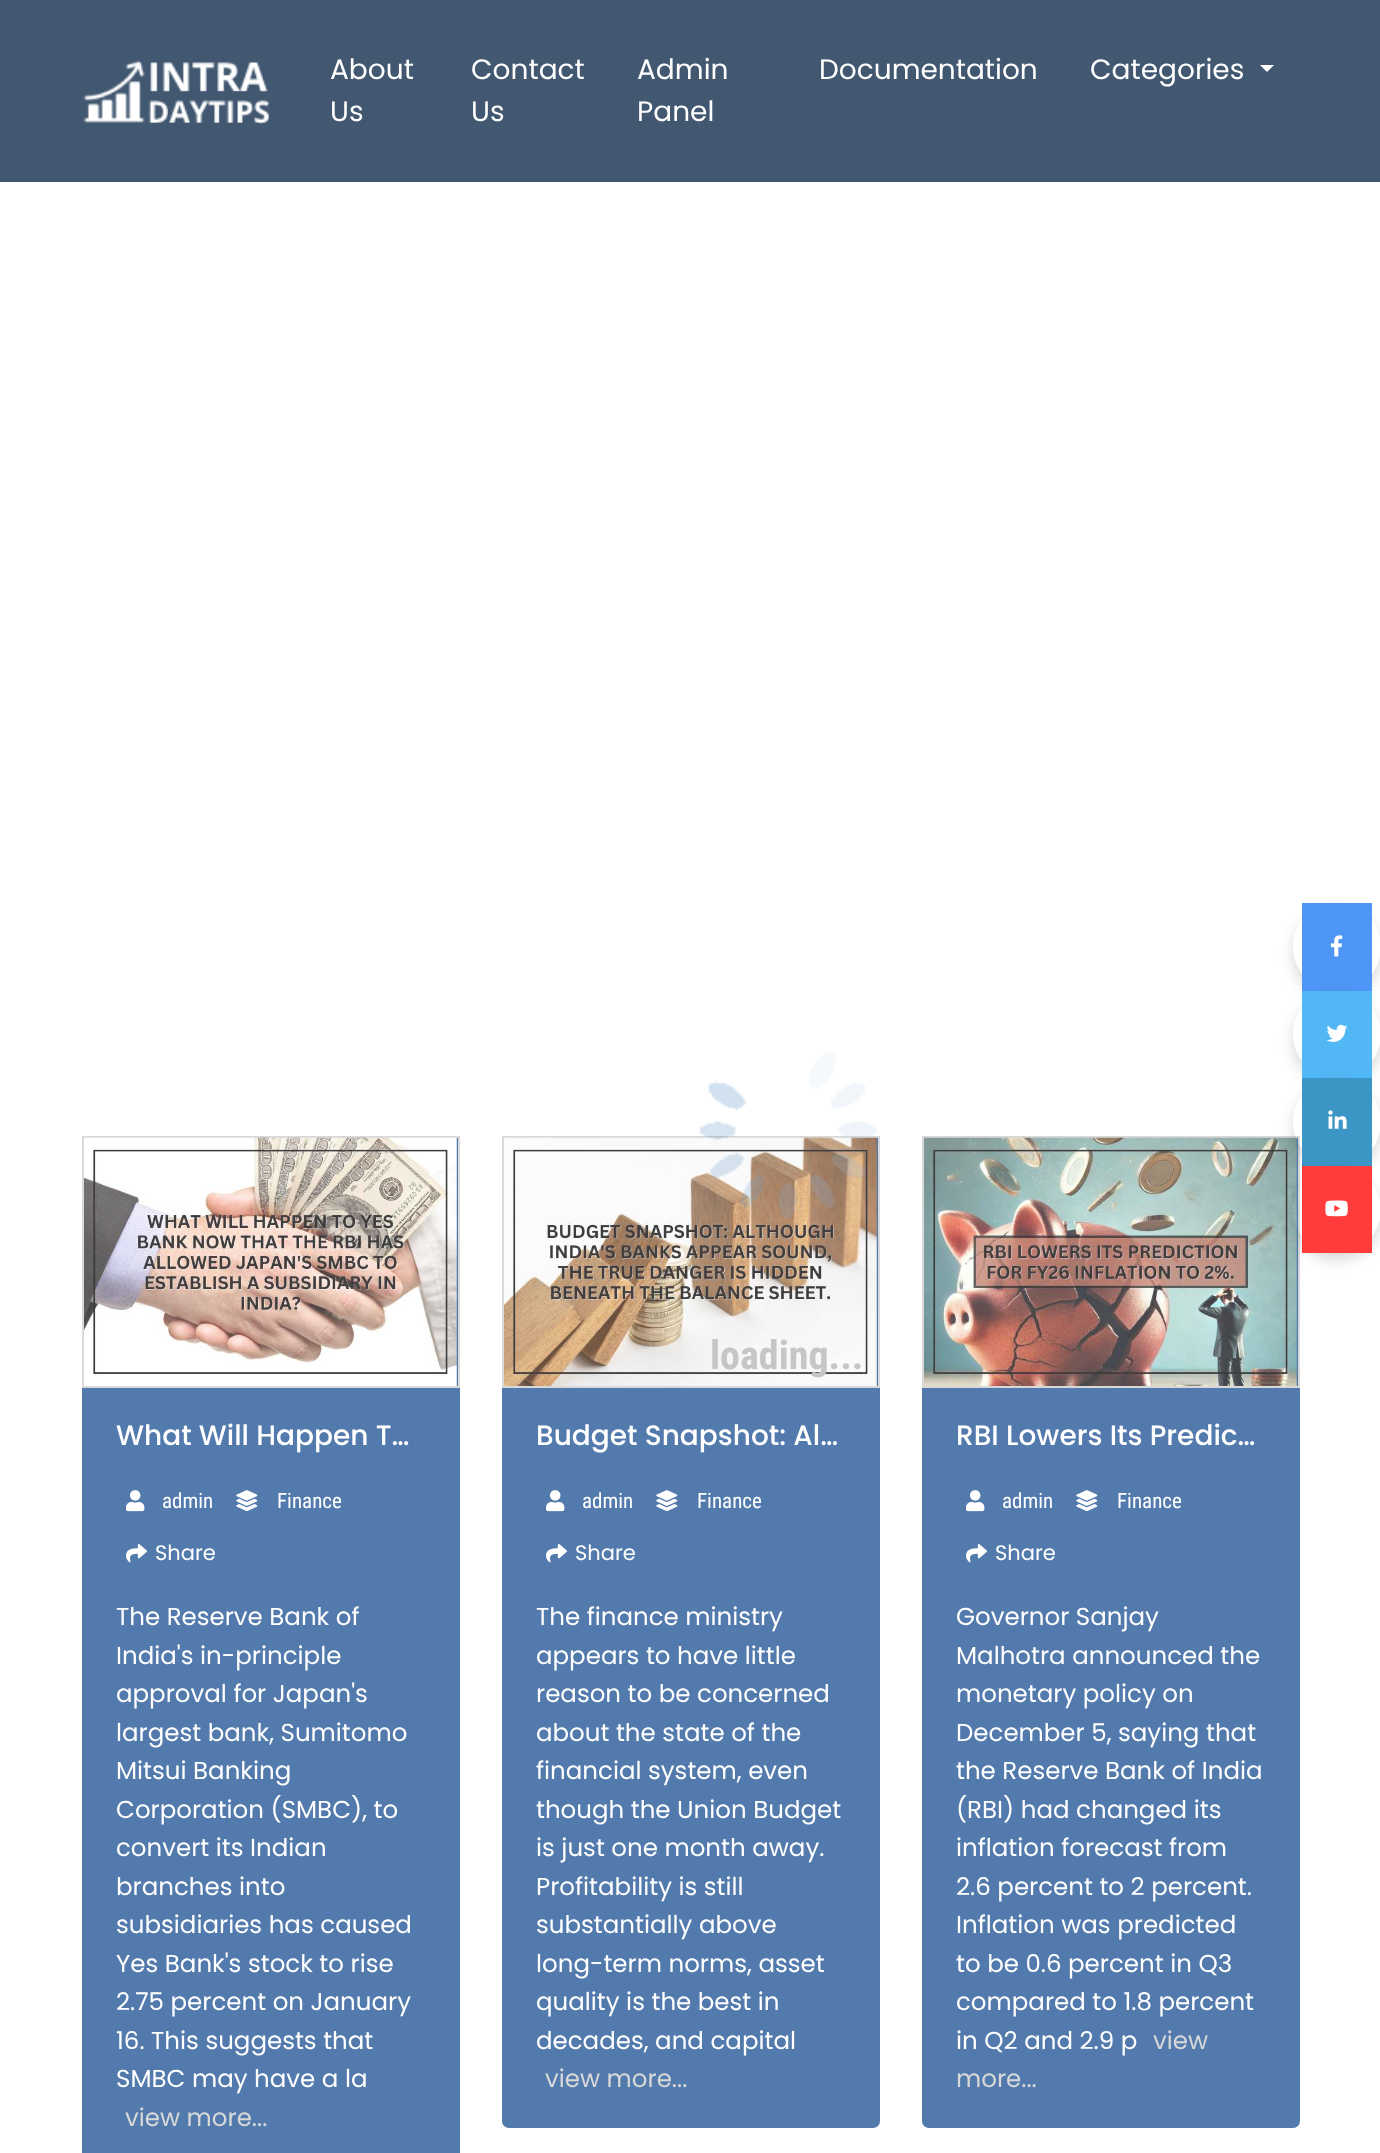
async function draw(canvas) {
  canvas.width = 1380
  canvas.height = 2153
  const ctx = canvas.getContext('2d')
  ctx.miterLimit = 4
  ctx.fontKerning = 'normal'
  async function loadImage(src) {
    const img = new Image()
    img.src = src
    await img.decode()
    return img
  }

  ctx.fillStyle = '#fff'
  ctx.fillRect(0, 0, 1380, 2153)
  ctx.fillStyle = '#425871'
  ctx.fillRect(0, 0, 1380, 182)
  ctx.drawImage(await loadImage('image0.png'), 83, 60, 187, 65)
  ctx.font = '28px Poppins'
  ctx.fillStyle = '#fff'
  ctx.fillText('About', 330, 79)
  ctx.fillText('Us', 330, 121)
  ctx.fillText('Contact', 471, 79)
  ctx.fillText('Us', 471, 121)
  ctx.fillText('Admin', 637, 79)
  ctx.fillText('Panel', 637, 121)
  ctx.fillText('Documentation', 819, 79)
  ctx.fillText('Categories', 1090, 79)
  ctx.beginPath()
  ctx.moveTo(1260, 65)
  ctx.lineTo(1274, 65)
  ctx.lineTo(1267, 72)
  ctx.closePath()
  ctx.fill()
  ctx.save()
  ctx.beginPath()
  ctx.moveTo(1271, 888)
  ctx.lineTo(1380, 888)
  ctx.lineTo(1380, 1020)
  ctx.lineTo(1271, 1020)
  ctx.closePath()
  ctx.moveTo(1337, 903)
  ctx.bezierCurveTo(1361.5, 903, 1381, 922.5, 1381, 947)
  ctx.bezierCurveTo(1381, 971.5, 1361.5, 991, 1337, 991)
  ctx.bezierCurveTo(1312.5, 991, 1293, 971.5, 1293, 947)
  ctx.bezierCurveTo(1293, 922.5, 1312.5, 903, 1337, 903)
  ctx.closePath()
  ctx.clip('evenodd')
  ctx.fillStyle = '#3b3b3b33'
  ctx.filter = 'blur(7px)'
  ctx.beginPath()
  ctx.roundRect(1293, 910, 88, 88, 44)
  ctx.fill()
  ctx.filter = 'none'
  ctx.restore()
  ctx.fillStyle = '#4d96f5'
  ctx.fillRect(1302, 903, 70, 88)
  ctx.drawImage(await loadImage('image1.png'), 1330, 935, 13, 22)
  ctx.save()
  ctx.beginPath()
  ctx.moveTo(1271, 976)
  ctx.lineTo(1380, 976)
  ctx.lineTo(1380, 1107)
  ctx.lineTo(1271, 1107)
  ctx.closePath()
  ctx.moveTo(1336.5, 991)
  ctx.lineTo(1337.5, 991)
  ctx.bezierCurveTo(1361.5, 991, 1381, 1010.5, 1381, 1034.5)
  ctx.bezierCurveTo(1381, 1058.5, 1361.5, 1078, 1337.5, 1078)
  ctx.lineTo(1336.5, 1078)
  ctx.bezierCurveTo(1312.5, 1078, 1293, 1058.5, 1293, 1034.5)
  ctx.bezierCurveTo(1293, 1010.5, 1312.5, 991, 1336.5, 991)
  ctx.closePath()
  ctx.clip('evenodd')
  ctx.fillStyle = '#3b3b3b33'
  ctx.filter = 'blur(7px)'
  ctx.beginPath()
  ctx.roundRect(1293, 998, 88, 87, 43.5)
  ctx.fill()
  ctx.filter = 'none'
  ctx.restore()
  ctx.fillStyle = '#51b7f5'
  ctx.fillRect(1302, 991, 70, 87)
  ctx.drawImage(await loadImage('image2.png'), 1326, 1024, 22, 18)
  ctx.fillStyle = '#537aad'
  ctx.beginPath()
  ctx.roundRect(922, 1136, 378, 992, 7)
  ctx.fill()
  ctx.strokeStyle = '#d8d8d8'
  ctx.lineWidth = 2
  ctx.strokeRect(923, 1137, 376, 250)
  ctx.drawImage(await loadImage('image11.png'), 924, 1137, 373, 249)
  ctx.save()
  ctx.beginPath()
  ctx.moveTo(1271, 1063)
  ctx.lineTo(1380, 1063)
  ctx.lineTo(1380, 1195)
  ctx.lineTo(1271, 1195)
  ctx.closePath()
  ctx.moveTo(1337, 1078)
  ctx.bezierCurveTo(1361.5, 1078, 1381, 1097.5, 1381, 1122)
  ctx.bezierCurveTo(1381, 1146.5, 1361.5, 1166, 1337, 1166)
  ctx.bezierCurveTo(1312.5, 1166, 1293, 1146.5, 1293, 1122)
  ctx.bezierCurveTo(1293, 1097.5, 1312.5, 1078, 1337, 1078)
  ctx.closePath()
  ctx.clip('evenodd')
  ctx.fillStyle = '#3b3b3b33'
  ctx.filter = 'blur(7px)'
  ctx.beginPath()
  ctx.roundRect(1293, 1085, 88, 88, 44)
  ctx.fill()
  ctx.filter = 'none'
  ctx.restore()
  ctx.fillStyle = '#3b96c6'
  ctx.fillRect(1302, 1078, 70, 88)
  ctx.drawImage(await loadImage('image3.png'), 1328, 1110, 19, 19)
  ctx.save()
  ctx.beginPath()
  ctx.moveTo(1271, 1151)
  ctx.lineTo(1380, 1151)
  ctx.lineTo(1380, 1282)
  ctx.lineTo(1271, 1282)
  ctx.closePath()
  ctx.moveTo(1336.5, 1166)
  ctx.lineTo(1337.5, 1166)
  ctx.bezierCurveTo(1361.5, 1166, 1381, 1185.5, 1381, 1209.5)
  ctx.bezierCurveTo(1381, 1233.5, 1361.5, 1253, 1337.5, 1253)
  ctx.lineTo(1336.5, 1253)
  ctx.bezierCurveTo(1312.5, 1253, 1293, 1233.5, 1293, 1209.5)
  ctx.bezierCurveTo(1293, 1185.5, 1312.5, 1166, 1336.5, 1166)
  ctx.closePath()
  ctx.clip('evenodd')
  ctx.fillStyle = '#3b3b3b33'
  ctx.filter = 'blur(7px)'
  ctx.beginPath()
  ctx.roundRect(1293, 1173, 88, 87, 43.5)
  ctx.fill()
  ctx.filter = 'none'
  ctx.restore()
  ctx.fillStyle = '#ff3b3b'
  ctx.fillRect(1302, 1166, 70, 87)
  ctx.drawImage(await loadImage('image4.png'), 1325, 1200, 23, 17)
  ctx.fillStyle = '#537aad'
  ctx.beginPath()
  ctx.roundRect(502, 1136, 378, 992, 7)
  ctx.fill()
  ctx.strokeRect(503, 1137, 376, 250)
  ctx.drawImage(await loadImage('image10.png'), 504, 1137, 373, 249)
  ctx.drawImage(await loadImage('image5.png'), 699, 1052, 178, 168)
  ctx.font = 'bold 40px Roboto Condensed'
  ctx.fillStyle = '#c5c6c7'
  ctx.fillText('loading...', 710, 1369)
  ctx.fillStyle = '#537aad'
  ctx.fillRect(82, 1138, 378, 1015)
  ctx.strokeRect(83, 1137, 376, 250)
  ctx.drawImage(await loadImage('image6.png'), 84, 1137, 373, 249)
  ctx.font = '500 28px Poppins'
  ctx.fillStyle = '#fff'
  ctx.fillText('What Will Happen T…', 116, 1445)
  ctx.drawImage(await loadImage('image7.png'), 126, 1490, 19, 22)
  ctx.font = '21px Roboto Condensed'
  ctx.fillText('admin', 162, 1508)
  ctx.drawImage(await loadImage('image8.png'), 236, 1490, 22, 22)
  ctx.fillText('Finance', 277, 1508)
  ctx.drawImage(await loadImage('image9.png'), 126, 1544, 21, 19)
  ctx.font = '21px Poppins'
  ctx.fillText('Share', 155, 1560)
  ctx.font = '24.5px Poppins'
  ctx.fillText('The Reserve Bank of', 116, 1625)
  ctx.fillText('India\'s in-principle', 116, 1664)
  ctx.fillText('approval for Japan\'s', 116, 1702)
  ctx.fillText('largest bank, Sumitomo', 116, 1741)
  ctx.fillText('Mitsui Banking', 116, 1779)
  ctx.fillText('Corporation (SMBC), to', 116, 1818)
  ctx.fillText('convert its Indian', 116, 1856)
  ctx.fillText('branches into', 116, 1895)
  ctx.fillText('subsidiaries has caused', 116, 1933)
  ctx.fillText('Yes Bank\'s stock to rise', 116, 1972)
  ctx.fillText('2.75 percent on January', 116, 2010)
  ctx.fillText('16. This suggests that', 116, 2049)
  ctx.fillText('SMBC may have a la', 116, 2087)
  ctx.fillStyle = '#d8d8d8'
  ctx.fillText('view more...', 125, 2126)
  ctx.font = '500 28px Poppins'
  ctx.fillStyle = '#fff'
  ctx.fillText('Budget Snapshot: Al…', 536, 1445)
  ctx.drawImage(await loadImage('image7.png'), 546, 1490, 19, 22)
  ctx.font = '21px Roboto Condensed'
  ctx.fillText('admin', 582, 1508)
  ctx.drawImage(await loadImage('image8.png'), 656, 1490, 22, 22)
  ctx.fillText('Finance', 697, 1508)
  ctx.drawImage(await loadImage('image9.png'), 546, 1544, 21, 19)
  ctx.font = '21px Poppins'
  ctx.fillText('Share', 575, 1560)
  ctx.font = '24.5px Poppins'
  ctx.fillText('The finance ministry', 536, 1625)
  ctx.fillText('appears to have little', 536, 1664)
  ctx.fillText('reason to be concerned', 536, 1702)
  ctx.fillText('about the state of the', 536, 1741)
  ctx.fillText('financial system, even', 536, 1779)
  ctx.fillText('though the Union Budget', 536, 1818)
  ctx.fillText('is just one month away.', 536, 1856)
  ctx.fillText('Profitability is still', 536, 1895)
  ctx.fillText('substantially above', 536, 1933)
  ctx.fillText('long-term norms, asset', 536, 1972)
  ctx.fillText('quality is the best in', 536, 2010)
  ctx.fillText('decades, and capital', 536, 2049)
  ctx.fillStyle = '#d8d8d8'
  ctx.fillText('view more...', 545, 2087)
  ctx.font = '500 28px Poppins'
  ctx.fillStyle = '#fff'
  ctx.fillText('RBI Lowers Its Predic…', 956, 1445)
  ctx.drawImage(await loadImage('image7.png'), 966, 1490, 19, 22)
  ctx.font = '21px Roboto Condensed'
  ctx.fillText('admin', 1002, 1508)
  ctx.drawImage(await loadImage('image8.png'), 1076, 1490, 22, 22)
  ctx.fillText('Finance', 1117, 1508)
  ctx.drawImage(await loadImage('image9.png'), 966, 1544, 21, 19)
  ctx.font = '21px Poppins'
  ctx.fillText('Share', 995, 1560)
  ctx.font = '24.5px Poppins'
  ctx.fillText('Governor Sanjay', 956, 1625)
  ctx.fillText('Malhotra announced the', 956, 1664)
  ctx.fillText('monetary policy on', 956, 1702)
  ctx.fillText('December 5, saying that', 956, 1741)
  ctx.fillText('the Reserve Bank of India', 956, 1779)
  ctx.fillText('(RBI) had changed its', 956, 1818)
  ctx.fillText('inflation forecast from', 956, 1856)
  ctx.fillText('2.6 percent to 2 percent.', 956, 1895)
  ctx.fillText('Inflation was predicted', 956, 1933)
  ctx.fillText('to be 0.6 percent in Q3', 956, 1972)
  ctx.fillText('compared to 1.8 percent', 956, 2010)
  ctx.fillText('in Q2 and 2.9 p', 956, 2049)
  ctx.fillStyle = '#d8d8d8'
  ctx.fillText('view', 1153, 2049)
  ctx.fillText('more...', 956, 2087)
}

draw(document.querySelector('canvas'))
